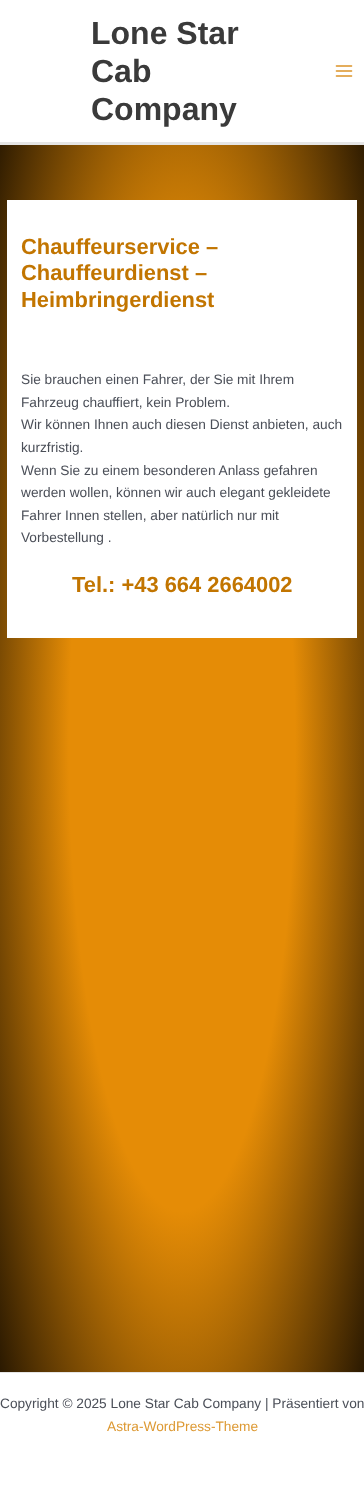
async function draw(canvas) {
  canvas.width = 364
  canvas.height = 1493
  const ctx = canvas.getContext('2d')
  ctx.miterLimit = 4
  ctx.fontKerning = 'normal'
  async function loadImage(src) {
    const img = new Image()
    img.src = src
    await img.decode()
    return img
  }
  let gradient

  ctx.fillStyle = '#fff'
  ctx.fillRect(0, 0, 364, 1493)
  gradient = ctx.createRadialGradient(182, 181.8, 0, 182, 181.8, 257)
  gradient.addColorStop(0.44, '#e58c06')
  gradient.addColorStop(1, '#0d0700')
  ctx.fillStyle = gradient
  ctx.beginPath()
  ctx.rect(0, 145, 364, 1227)
  ctx.save()
  ctx.clip()
  ctx.scale(1, 1056 / 257)
  ctx.fillRect(0, 0, 364, 364)
  ctx.restore()
  ctx.fillStyle = '#e5e5e5'
  ctx.fillRect(0, 142, 364, 3)
  ctx.font = 'bold 32px Liberation Sans'
  ctx.fillStyle = '#3a3a3a'
  ctx.fillText('Lone Star', 91, 44)
  ctx.fillText('Cab', 91, 82)
  ctx.fillText('Company', 91, 120)
  ctx.drawImage(await loadImage('image0.png'), 335, 65, 18, 12)
  ctx.fillStyle = '#fff'
  ctx.fillRect(7, 200, 350, 438)
  ctx.font = 'bold 21.9px Liberation Sans'
  ctx.fillStyle = '#c27500'
  ctx.fillText('Chauffeurservice –', 21, 254)
  ctx.fillText('Chauffeurdienst –', 21, 280)
  ctx.fillText('Heimbringerdienst', 21, 307)
  ctx.font = '13.7px Liberation Sans'
  ctx.fillStyle = '#4b4f58'
  ctx.fillText('Sie brauchen einen Fahrer, der Sie mit Ihrem', 21, 384)
  ctx.fillText('Fahrzeug chauffiert, kein Problem.', 21, 407)
  ctx.fillText('Wir können Ihnen auch diesen Dienst anbieten, auch', 21, 429)
  ctx.fillText('kurzfristig.', 21, 452)
  ctx.fillText('Wenn Sie zu einem besonderen Anlass gefahren', 21, 475)
  ctx.fillText('werden wollen, können wir auch elegant gekleidete', 21, 497)
  ctx.fillText('Fahrer Innen stellen, aber natürlich nur mit', 21, 520)
  ctx.fillText('Vorbestellung .', 21, 542)
  ctx.font = 'bold 21.9px Liberation Sans'
  ctx.fillStyle = '#c27500'
  ctx.fillText('Tel.: +43 664 2664002', 72, 592)
  ctx.fillStyle = '#e5e5e5'
  ctx.fillRect(0, 1372, 364, 1)
  ctx.font = '13.7px Liberation Sans'
  ctx.fillStyle = '#4b4f58'
  ctx.fillText('Copyright © 2025 Lone Star Cab Company | Präsentiert von', 0, 1408)
  ctx.fillStyle = '#d93'
  ctx.fillText('Astra-WordPress-Theme', 107, 1431)
}

draw(document.querySelector('canvas'))
